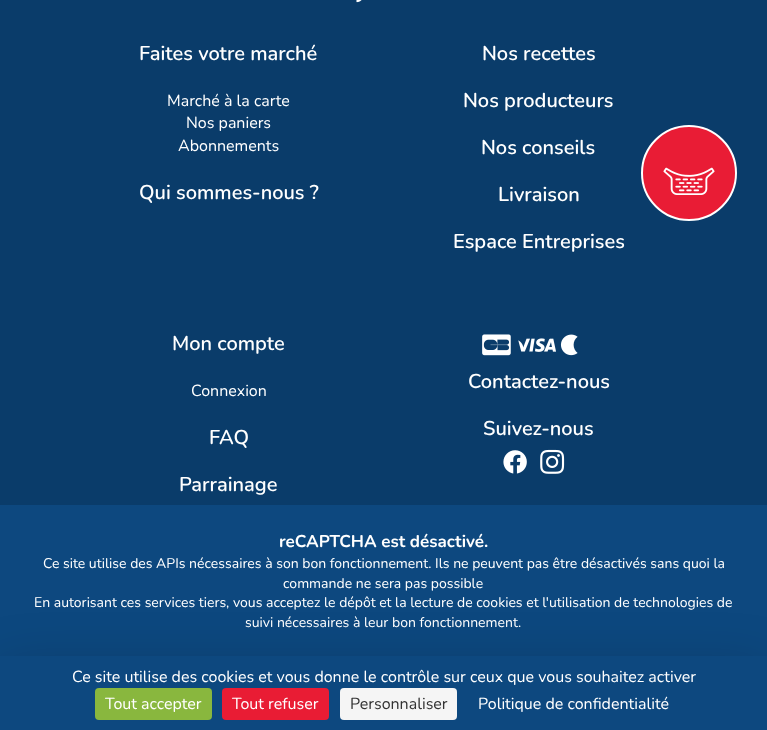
async function draw(canvas) {
  canvas.width = 767
  canvas.height = 730
  const ctx = canvas.getContext('2d')
  ctx.miterLimit = 4
  ctx.fontKerning = 'normal'
  async function loadImage(src) {
    const img = new Image()
    img.src = src
    await img.decode()
    return img
  }

  ctx.fillStyle = '#0a3c6a'
  ctx.fillRect(0, 0, 767, 730)
  ctx.drawImage(await loadImage('image0.png'), 356, 0, 6, 3)
  ctx.font = '600 20px Nunito'
  ctx.fillStyle = '#fff'
  ctx.fillText('Faites votre marché', 139, 60)
  ctx.font = '16px Nunito'
  ctx.fillText('Marché à la carte', 167, 106)
  ctx.fillText('Nos paniers', 186, 128)
  ctx.fillText('Abonnements', 178, 151)
  ctx.font = '600 20px Nunito'
  ctx.fillText('Qui sommes-nous ?', 139, 199)
  ctx.fillText('Nos recettes', 482, 60)
  ctx.fillText('Nos producteurs', 463, 107)
  ctx.fillText('Nos conseils', 481, 154)
  ctx.fillText('Livraison', 498, 201)
  ctx.fillText('Espace Entreprises', 453, 248)
  ctx.fillText('Mon compte', 172, 350)
  ctx.font = '16px Nunito'
  ctx.fillText('Connexion', 191, 396)
  ctx.font = '600 20px Nunito'
  ctx.fillText('FAQ', 209, 444)
  ctx.fillText('Parrainage', 179, 491)
  ctx.drawImage(await loadImage('image1.png'), 482, 334, 96, 22)
  ctx.fillText('Contactez-nous', 468, 388)
  ctx.fillText('Suivez-nous', 483, 435)
  ctx.drawImage(await loadImage('image2.png'), 503, 450, 24, 24)
  ctx.drawImage(await loadImage('image3.png'), 540, 449, 25, 25)
  ctx.fillStyle = '#e91c35'
  ctx.beginPath()
  ctx.arc(689, 173, 47, 0, 2 * Math.PI)
  ctx.fill()
  ctx.strokeStyle = '#fff'
  ctx.lineWidth = 2
  ctx.stroke()
  ctx.drawImage(await loadImage('image4.png'), 663, 167, 52, 28)
  ctx.fillStyle = '#0d487f'
  ctx.fillRect(0, 505, 767, 151)
  ctx.font = 'bold 17px Nunito'
  ctx.fillStyle = '#fff'
  ctx.fillText('reCAPTCHA est désactivé.', 279, 547)
  ctx.font = '14px Nunito'
  ctx.fillText('Ce site utilise des APIs nécessaires à son bon fonctionnement. Ils ne peuvent pas être désactivés sans quoi la', 43, 568)
  ctx.fillText('commande ne sera pas possible', 283, 588)
  ctx.fillText('En autorisant ces services tiers, vous acceptez le dépôt et la lecture de cookies et l\'utilisation de technologies de', 34, 607)
  ctx.fillText('suivi nécessaires à leur bon fonctionnement.', 245, 627)
  ctx.fillStyle = '#00000040'
  ctx.filter = 'blur(30px)'
  ctx.beginPath()
  ctx.rect(0, 676, 767, 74)
  ctx.fill()
  ctx.filter = 'none'
  ctx.fillStyle = '#0d487f'
  ctx.fillRect(0, 656, 767, 74)
  ctx.font = '16px Nunito'
  ctx.fillStyle = '#fff'
  ctx.fillText('Ce site utilise des cookies et vous donne le contrôle sur ceux que vous souhaitez activer', 72, 682)
  ctx.fillStyle = '#89b73e'
  ctx.beginPath()
  ctx.roundRect(95, 688, 117, 32, 4)
  ctx.fill()
  ctx.fillStyle = '#fff'
  ctx.fillText('Tout accepter', 105, 709)
  ctx.fillStyle = '#e91c34'
  ctx.beginPath()
  ctx.roundRect(222, 688, 107, 32, 4)
  ctx.fill()
  ctx.fillStyle = '#fff'
  ctx.fillText('Tout refuser', 232, 709)
  ctx.fillStyle = '#f5f5f5'
  ctx.beginPath()
  ctx.roundRect(340, 688, 117, 32, 4)
  ctx.fill()
  ctx.fillStyle = '#333'
  ctx.fillText('Personnaliser', 350, 709)
  ctx.fillStyle = '#fff'
  ctx.fillText('Politique de confidentialité', 478, 709)
}

draw(document.querySelector('canvas'))
